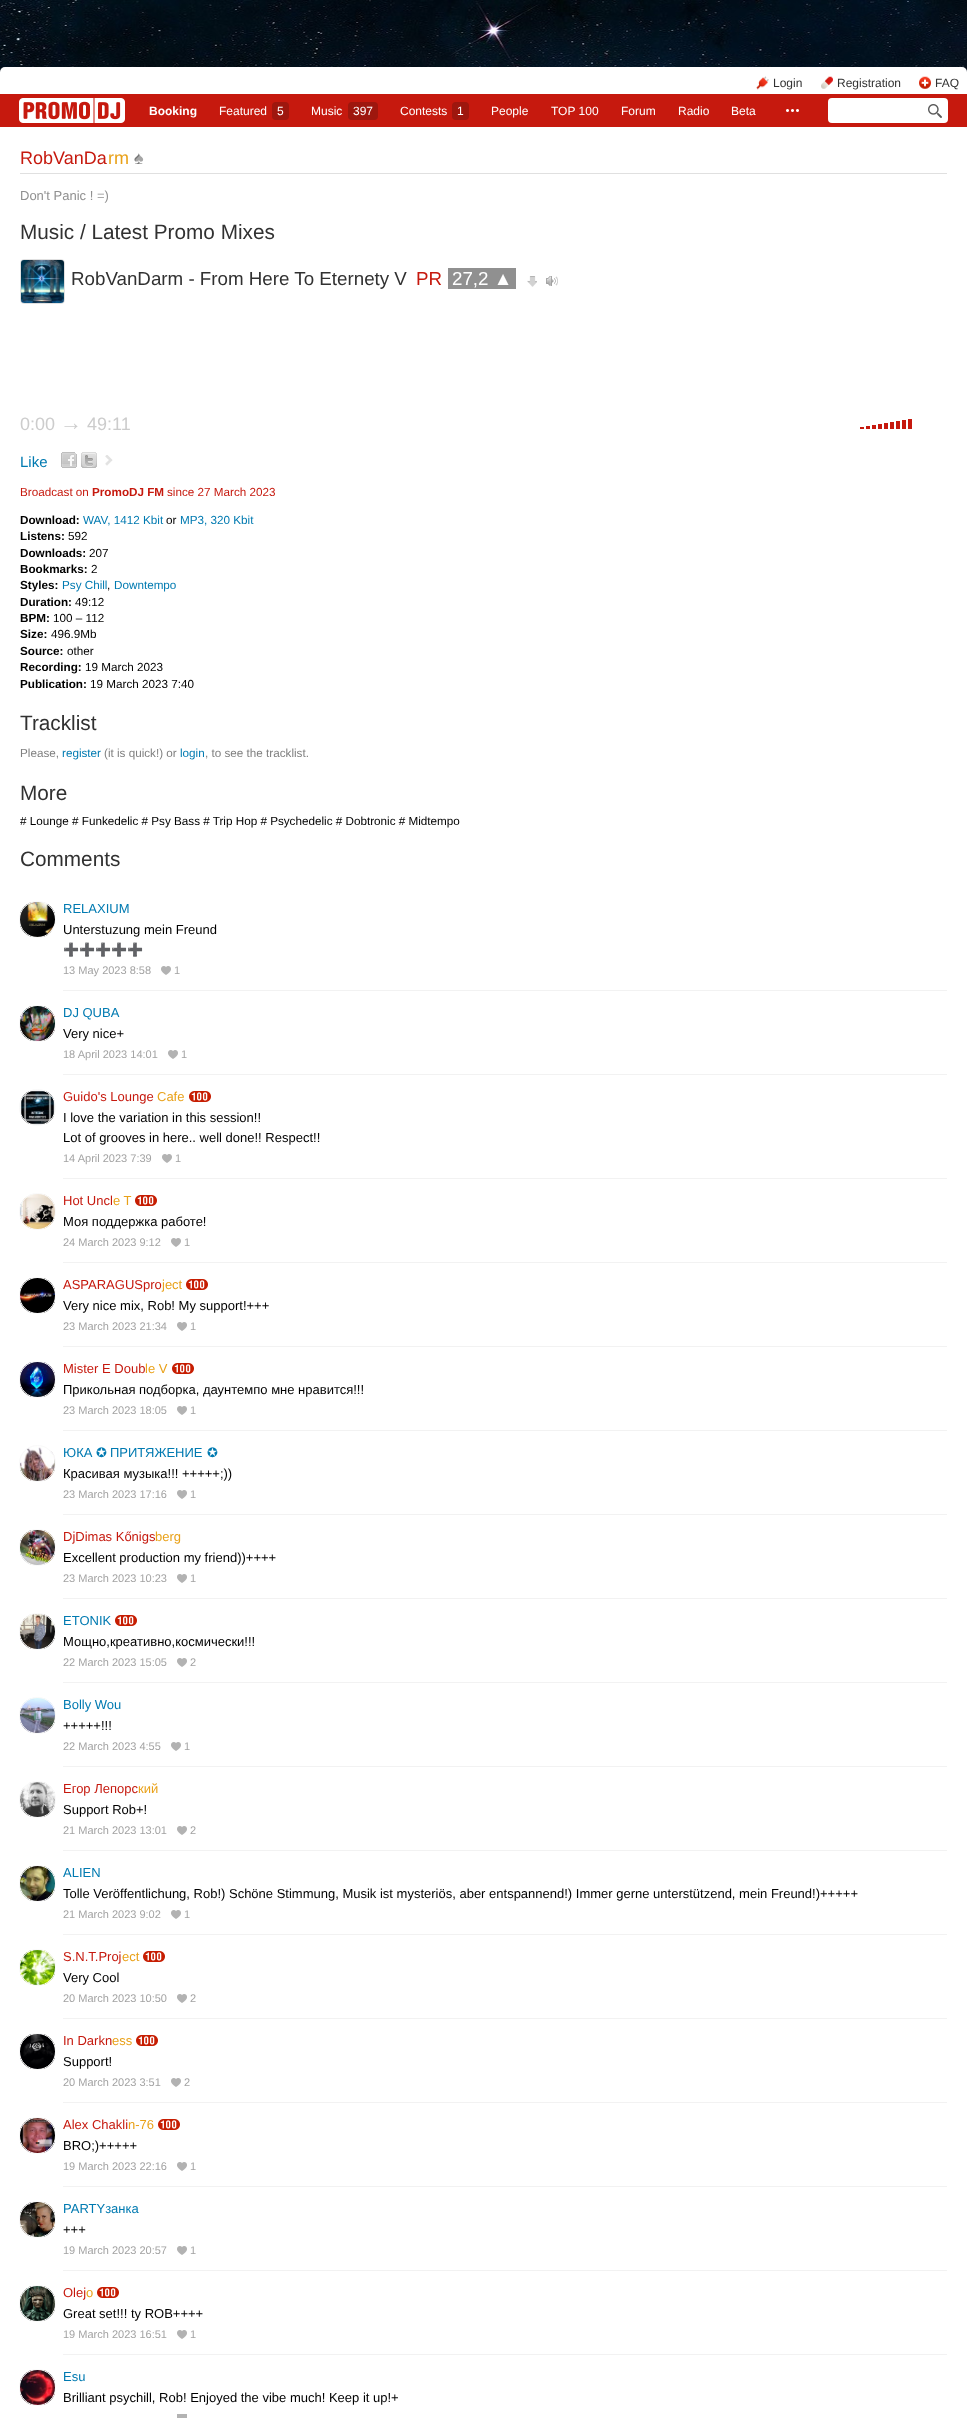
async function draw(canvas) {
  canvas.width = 967
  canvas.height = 2418
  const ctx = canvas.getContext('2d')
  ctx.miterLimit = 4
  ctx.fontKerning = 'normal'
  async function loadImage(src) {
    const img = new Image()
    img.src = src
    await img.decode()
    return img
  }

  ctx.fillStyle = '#fff'
  ctx.fillRect(0, 0, 967, 2418)
  ctx.drawImage(await loadImage('image0.png'), 0, 0, 967, 72)
  ctx.beginPath()
  ctx.roundRect(0, 67, 967, 27, [5, 5, 0, 0])
  ctx.fill()
  ctx.drawImage(await loadImage('image1.png'), 756, 76, 13, 14)
  ctx.font = '12px Liberation Sans'
  ctx.fillStyle = '#313131'
  ctx.fillText('Login', 773, 87)
  ctx.drawImage(await loadImage('image2.png'), 821, 76, 12, 13)
  ctx.fillText('Registration', 837, 87)
  ctx.drawImage(await loadImage('image3.png'), 919, 76, 12, 13)
  ctx.fillText('FAQ', 935, 87)
  ctx.fillStyle = '#c6190e'
  ctx.fillRect(0, 94, 967, 33)
  ctx.drawImage(await loadImage('image4.png'), 19, 98, 106, 25)
  ctx.font = 'bold 12px Liberation Sans'
  ctx.fillStyle = '#fff'
  ctx.fillText('Booking', 149, 115)
  ctx.font = '12px Liberation Sans'
  ctx.fillText('Featured', 219, 115)
  ctx.fillStyle = '#9e170e'
  ctx.beginPath()
  ctx.roundRect(272, 102, 17, 18, 4)
  ctx.fill()
  ctx.fillStyle = '#fff'
  ctx.fillText('5', 277, 115)
  ctx.fillText('Music', 311, 115)
  ctx.fillStyle = '#9e170e'
  ctx.beginPath()
  ctx.roundRect(348, 102, 30, 18, 4)
  ctx.fill()
  ctx.fillStyle = '#fff'
  ctx.fillText('397', 353, 115)
  ctx.fillText('Сontests', 400, 115)
  ctx.fillStyle = '#9e170e'
  ctx.beginPath()
  ctx.roundRect(452, 102, 17, 18, 4)
  ctx.fill()
  ctx.fillStyle = '#fff'
  ctx.fillText('1', 457, 115)
  ctx.fillText('People', 491, 115)
  ctx.fillText('TOP 100', 551, 115)
  ctx.fillText('Forum', 621, 115)
  ctx.fillText('Radio', 678, 115)
  ctx.fillText('Beta', 731, 115)
  ctx.drawImage(await loadImage('image5.png'), 786, 109, 13, 3)
  ctx.beginPath()
  ctx.roundRect(828, 98, 120, 25, 4)
  ctx.fill()
  ctx.drawImage(await loadImage('image6.png'), 928, 104, 14, 14)
  ctx.fillStyle = '#e0e0e0'
  ctx.fillRect(20, 173, 927, 1)
  ctx.font = '18px Liberation Sans'
  ctx.fillStyle = '#c6190e'
  ctx.fillText('RobVanDa', 20, 164)
  ctx.fillStyle = '#e9a118'
  ctx.fillText('rm', 108, 164)
  ctx.drawImage(await loadImage('image7.png'), 134, 153, 10, 11)
  ctx.font = '13px Liberation Sans'
  ctx.fillStyle = '#909090'
  ctx.fillText('Don\'t Panic ! =)', 20, 200)
  ctx.font = '20.75px Liberation Sans'
  ctx.fillStyle = '#313131'
  ctx.fillText('Music / Latest Promo Mixes', 20, 239)
  ctx.beginPath()
  ctx.roundRect(20.5, 259.5, 44, 44, 3.5)
  ctx.strokeStyle = '#e0e0e0'
  ctx.stroke()
  ctx.drawImage(await loadImage('image8.png'), 21, 260, 43, 43)
  ctx.font = '18.75px Liberation Sans'
  ctx.fillText('RobVanDarm - From Here To Eternety V', 71, 285)
  ctx.fillStyle = '#c6190e'
  ctx.fillText('PR', 416, 285)
  ctx.fillStyle = '#909090'
  ctx.fillRect(448, 268, 68, 21)
  ctx.fillStyle = '#fff'
  ctx.fillText('27,2 ▲', 452, 285)
  ctx.drawImage(await loadImage('image9.png'), 527, 276, 10, 11)
  ctx.drawImage(await loadImage('image10.png'), 546, 276, 12, 10)
  ctx.font = '18px Liberation Sans'
  ctx.fillStyle = '#ccc'
  ctx.fillText('0:00', 20, 430)
  ctx.font = '22px Liberation Sans'
  ctx.fillText('→', 60, 430)
  ctx.font = '18px Liberation Sans'
  ctx.fillText('49:11', 87, 430)
  ctx.fillStyle = '#c6190e'
  ctx.fillRect(860, 427, 4, 2)
  ctx.fillRect(866, 426, 4, 3)
  ctx.fillRect(872, 425, 4, 4)
  ctx.fillRect(878, 424, 4, 5)
  ctx.fillRect(884, 423, 4, 6)
  ctx.fillRect(890, 422, 4, 7)
  ctx.fillRect(896, 421, 4, 8)
  ctx.fillRect(902, 420, 4, 9)
  ctx.fillRect(908, 419, 4, 10)
  ctx.font = '15px Liberation Sans'
  ctx.fillStyle = '#007ab1'
  ctx.fillText('Like', 20, 467)
  ctx.drawImage(await loadImage('image11.png'), 61, 452, 16, 16)
  ctx.drawImage(await loadImage('image12.png'), 81, 452, 16, 16)
  ctx.drawImage(await loadImage('image13.png'), 105, 455, 8, 11)
  ctx.font = '11.7px Liberation Sans'
  ctx.fillStyle = '#c6190e'
  ctx.fillText('Broadcast on', 20, 496)
  ctx.font = 'bold 11.7px Liberation Sans'
  ctx.fillText('PromoDJ FM', 92, 496)
  ctx.font = '11.7px Liberation Sans'
  ctx.fillText('since 27 March 2023', 167, 496)
  ctx.font = 'bold 11.7px Liberation Sans'
  ctx.fillStyle = '#000'
  ctx.fillText('Download:', 20, 524)
  ctx.font = '11.7px Liberation Sans'
  ctx.fillStyle = '#007ab1'
  ctx.fillText('WAV, 1412 Kbit', 83, 524)
  ctx.fillStyle = '#000'
  ctx.fillText('or', 166, 524)
  ctx.fillStyle = '#007ab1'
  ctx.fillText('MP3, 320 Kbit', 180, 524)
  ctx.font = 'bold 11.7px Liberation Sans'
  ctx.fillStyle = '#000'
  ctx.fillText('Listens:', 20, 540)
  ctx.font = '11.7px Liberation Sans'
  ctx.fillText('592', 68, 540)
  ctx.font = 'bold 11.7px Liberation Sans'
  ctx.fillText('Downloads:', 20, 557)
  ctx.font = '11.7px Liberation Sans'
  ctx.fillText('207', 89, 557)
  ctx.font = 'bold 11.7px Liberation Sans'
  ctx.fillText('Bookmarks:', 20, 573)
  ctx.font = '11.7px Liberation Sans'
  ctx.fillText('2', 91, 573)
  ctx.font = 'bold 11.7px Liberation Sans'
  ctx.fillText('Styles:', 20, 589)
  ctx.font = '11.7px Liberation Sans'
  ctx.fillStyle = '#007ab1'
  ctx.fillText('Psy Chill', 62, 589)
  ctx.fillStyle = '#000'
  ctx.fillText(',', 107, 589)
  ctx.fillStyle = '#007ab1'
  ctx.fillText('Downtempo', 114, 589)
  ctx.font = 'bold 11.7px Liberation Sans'
  ctx.fillStyle = '#000'
  ctx.fillText('Duration:', 20, 606)
  ctx.font = '11.7px Liberation Sans'
  ctx.fillText('49:12', 75, 606)
  ctx.font = 'bold 11.7px Liberation Sans'
  ctx.fillText('BPM:', 20, 622)
  ctx.font = '11.7px Liberation Sans'
  ctx.fillText('100 – 112', 53, 622)
  ctx.font = 'bold 11.7px Liberation Sans'
  ctx.fillText('Size:', 20, 638)
  ctx.font = '11.7px Liberation Sans'
  ctx.fillText('496.9Mb', 51, 638)
  ctx.font = 'bold 11.7px Liberation Sans'
  ctx.fillText('Source:', 20, 655)
  ctx.font = '11.7px Liberation Sans'
  ctx.fillText('other', 67, 655)
  ctx.font = 'bold 11.7px Liberation Sans'
  ctx.fillText('Recording:', 20, 671)
  ctx.font = '11.7px Liberation Sans'
  ctx.fillText('19 March 2023', 85, 671)
  ctx.font = 'bold 11.7px Liberation Sans'
  ctx.fillText('Publication:', 20, 688)
  ctx.font = '11.7px Liberation Sans'
  ctx.fillText('19 March 2023 7:40', 90, 688)
  ctx.font = '20.75px Liberation Sans'
  ctx.fillStyle = '#313131'
  ctx.fillText('Tracklist', 20, 730)
  ctx.font = '11.7px Liberation Sans'
  ctx.fillStyle = '#808080'
  ctx.fillText('Please,', 20, 757)
  ctx.fillStyle = '#007ab1'
  ctx.fillText('register', 62, 757)
  ctx.fillStyle = '#808080'
  ctx.fillText('(it is quick!) or', 104, 757)
  ctx.fillStyle = '#007ab1'
  ctx.fillText('login', 180, 757)
  ctx.fillStyle = '#808080'
  ctx.fillText(', to see the tracklist.', 205, 757)
  ctx.font = '20.75px Liberation Sans'
  ctx.fillStyle = '#313131'
  ctx.fillText('More', 20, 800)
  ctx.font = '11.7px Liberation Sans'
  ctx.fillStyle = '#000'
  ctx.fillText('# Lounge # Funkedelic # Psy Bass # Trip Hop # Psychedelic # Dobtronic # Midtempo', 20, 825)
  ctx.font = '20.75px Liberation Sans'
  ctx.fillStyle = '#313131'
  ctx.fillText('Comments', 20, 866)
  ctx.drawImage(await loadImage('image14.png'), 20, 902, 35, 35)
  ctx.beginPath()
  ctx.arc(37.5, 919.5, 18, 0, 2 * Math.PI)
  ctx.strokeStyle = '#f9f9f9'
  ctx.stroke()
  ctx.font = '13px Liberation Sans'
  ctx.fillStyle = '#007ab1'
  ctx.fillText('RELAXIUM', 63, 913)
  ctx.fillStyle = '#000'
  ctx.fillText('Unterstuzung mein Freund', 63, 934)
  ctx.font = '13px Noto Color Emoji'
  ctx.fillText('➕️➕️➕️➕️➕️', 63, 954)
  ctx.font = '11px Liberation Sans'
  ctx.fillStyle = '#a3a3a3'
  ctx.fillText('13 May 2023 8:58', 63, 974)
  ctx.drawImage(await loadImage('image15.png'), 161, 966, 10, 9)
  ctx.fillText('1', 174, 974)
  ctx.fillStyle = '#f2f2f2'
  ctx.fillRect(63, 990, 884, 1)
  ctx.drawImage(await loadImage('image16.png'), 20, 1006, 35, 35)
  ctx.beginPath()
  ctx.arc(37.5, 1023.5, 18, 0, 2 * Math.PI)
  ctx.stroke()
  ctx.font = '13px Liberation Sans'
  ctx.fillStyle = '#007ab1'
  ctx.fillText('DJ QUBA', 63, 1017)
  ctx.fillStyle = '#000'
  ctx.fillText('Very nice+', 63, 1038)
  ctx.font = '11px Liberation Sans'
  ctx.fillStyle = '#a3a3a3'
  ctx.fillText('18 April 2023 14:01', 63, 1058)
  ctx.drawImage(await loadImage('image15.png'), 168, 1050, 10, 9)
  ctx.fillText('1', 181, 1058)
  ctx.fillStyle = '#f2f2f2'
  ctx.fillRect(63, 1074, 884, 1)
  ctx.drawImage(await loadImage('image17.png'), 20, 1090, 35, 35)
  ctx.beginPath()
  ctx.arc(37.5, 1107.5, 18, 0, 2 * Math.PI)
  ctx.stroke()
  ctx.font = '13px Liberation Sans'
  ctx.fillStyle = '#c6190e'
  ctx.fillText('Guido\'s Lounge', 63, 1101)
  ctx.fillStyle = '#e9a118'
  ctx.fillText('Cafe', 157, 1101)
  ctx.drawImage(await loadImage('image18.png'), 189, 1091, 22, 11)
  ctx.fillStyle = '#000'
  ctx.fillText('I love the variation in this session!!', 63, 1122)
  ctx.fillText('Lot of grooves in here.. well done!! Respect!!', 63, 1142)
  ctx.font = '11px Liberation Sans'
  ctx.fillStyle = '#a3a3a3'
  ctx.fillText('14 April 2023 7:39', 63, 1162)
  ctx.drawImage(await loadImage('image15.png'), 162, 1154, 10, 9)
  ctx.fillText('1', 175, 1162)
  ctx.fillStyle = '#f2f2f2'
  ctx.fillRect(63, 1178, 884, 1)
  ctx.drawImage(await loadImage('image19.png'), 20, 1194, 35, 35)
  ctx.beginPath()
  ctx.arc(37.5, 1211.5, 18, 0, 2 * Math.PI)
  ctx.stroke()
  ctx.font = '13px Liberation Sans'
  ctx.fillStyle = '#c6190e'
  ctx.fillText('Hot Uncl', 63, 1205)
  ctx.fillStyle = '#e9a118'
  ctx.fillText('e T', 113, 1205)
  ctx.drawImage(await loadImage('image18.png'), 135, 1195, 22, 11)
  ctx.fillStyle = '#000'
  ctx.fillText('Моя поддержка работе!', 63, 1226)
  ctx.font = '11px Liberation Sans'
  ctx.fillStyle = '#a3a3a3'
  ctx.fillText('24 March 2023 9:12', 63, 1246)
  ctx.drawImage(await loadImage('image15.png'), 171, 1238, 10, 9)
  ctx.fillText('1', 184, 1246)
  ctx.fillStyle = '#f2f2f2'
  ctx.fillRect(63, 1262, 884, 1)
  ctx.drawImage(await loadImage('image20.png'), 20, 1278, 35, 35)
  ctx.beginPath()
  ctx.arc(37.5, 1295.5, 18, 0, 2 * Math.PI)
  ctx.stroke()
  ctx.font = '13px Liberation Sans'
  ctx.fillStyle = '#c6190e'
  ctx.fillText('ASPARAGUSpro', 63, 1289)
  ctx.fillStyle = '#e9a118'
  ctx.fillText('ject', 162, 1289)
  ctx.drawImage(await loadImage('image18.png'), 186, 1279, 22, 11)
  ctx.fillStyle = '#000'
  ctx.fillText('Very nice mix, Rob! My support!+++', 63, 1310)
  ctx.font = '11px Liberation Sans'
  ctx.fillStyle = '#a3a3a3'
  ctx.fillText('23 March 2023 21:34', 63, 1330)
  ctx.drawImage(await loadImage('image15.png'), 177, 1322, 10, 9)
  ctx.fillText('1', 190, 1330)
  ctx.fillStyle = '#f2f2f2'
  ctx.fillRect(63, 1346, 884, 1)
  ctx.drawImage(await loadImage('image21.png'), 20, 1362, 35, 35)
  ctx.beginPath()
  ctx.arc(37.5, 1379.5, 18, 0, 2 * Math.PI)
  ctx.stroke()
  ctx.font = '13px Liberation Sans'
  ctx.fillStyle = '#c6190e'
  ctx.fillText('Mister E Doub', 63, 1373)
  ctx.fillStyle = '#e9a118'
  ctx.fillText('le V', 145, 1373)
  ctx.drawImage(await loadImage('image18.png'), 172, 1363, 22, 11)
  ctx.fillStyle = '#000'
  ctx.fillText('Прикольная подборка, даунтемпо мне нравится!!!', 63, 1394)
  ctx.font = '11px Liberation Sans'
  ctx.fillStyle = '#a3a3a3'
  ctx.fillText('23 March 2023 18:05', 63, 1414)
  ctx.drawImage(await loadImage('image15.png'), 177, 1406, 10, 9)
  ctx.fillText('1', 190, 1414)
  ctx.fillStyle = '#f2f2f2'
  ctx.fillRect(63, 1430, 884, 1)
  ctx.drawImage(await loadImage('image22.png'), 20, 1446, 35, 35)
  ctx.beginPath()
  ctx.arc(37.5, 1463.5, 18, 0, 2 * Math.PI)
  ctx.stroke()
  ctx.font = '13px Liberation Sans'
  ctx.fillStyle = '#007ab1'
  ctx.fillText('ЮКА', 63, 1457)
  ctx.font = '13px DejaVu Sans'
  ctx.fillText('✪', 96, 1457)
  ctx.font = '13px Liberation Sans'
  ctx.fillText('ПРИТЯЖЕНИЕ', 110, 1457)
  ctx.font = '13px DejaVu Sans'
  ctx.fillText('✪', 207, 1457)
  ctx.font = '13px Liberation Sans'
  ctx.fillStyle = '#000'
  ctx.fillText('Красивая музыка!!! +++++;))', 63, 1478)
  ctx.font = '11px Liberation Sans'
  ctx.fillStyle = '#a3a3a3'
  ctx.fillText('23 March 2023 17:16', 63, 1498)
  ctx.drawImage(await loadImage('image15.png'), 177, 1490, 10, 9)
  ctx.fillText('1', 190, 1498)
  ctx.fillStyle = '#f2f2f2'
  ctx.fillRect(63, 1514, 884, 1)
  ctx.drawImage(await loadImage('image23.png'), 20, 1530, 35, 35)
  ctx.beginPath()
  ctx.arc(37.5, 1547.5, 18, 0, 2 * Math.PI)
  ctx.stroke()
  ctx.font = '13px Liberation Sans'
  ctx.fillStyle = '#c6190e'
  ctx.fillText('DjDimas Kőnigs', 63, 1541)
  ctx.fillStyle = '#e9a118'
  ctx.fillText('berg', 155, 1541)
  ctx.fillStyle = '#000'
  ctx.fillText('Excellent production my friend))++++', 63, 1562)
  ctx.font = '11px Liberation Sans'
  ctx.fillStyle = '#a3a3a3'
  ctx.fillText('23 March 2023 10:23', 63, 1582)
  ctx.drawImage(await loadImage('image15.png'), 177, 1574, 10, 9)
  ctx.fillText('1', 190, 1582)
  ctx.fillStyle = '#f2f2f2'
  ctx.fillRect(63, 1598, 884, 1)
  ctx.drawImage(await loadImage('image24.png'), 20, 1614, 35, 35)
  ctx.beginPath()
  ctx.arc(37.5, 1631.5, 18, 0, 2 * Math.PI)
  ctx.stroke()
  ctx.font = '13px Liberation Sans'
  ctx.fillStyle = '#007ab1'
  ctx.fillText('ETONIK', 63, 1625)
  ctx.drawImage(await loadImage('image18.png'), 115, 1615, 22, 11)
  ctx.fillStyle = '#000'
  ctx.fillText('Мощно,креативно,космически!!!', 63, 1646)
  ctx.font = '11px Liberation Sans'
  ctx.fillStyle = '#a3a3a3'
  ctx.fillText('22 March 2023 15:05', 63, 1666)
  ctx.drawImage(await loadImage('image15.png'), 177, 1658, 10, 9)
  ctx.fillText('2', 190, 1666)
  ctx.fillStyle = '#f2f2f2'
  ctx.fillRect(63, 1682, 884, 1)
  ctx.drawImage(await loadImage('image25.png'), 20, 1698, 35, 35)
  ctx.beginPath()
  ctx.arc(37.5, 1715.5, 18, 0, 2 * Math.PI)
  ctx.stroke()
  ctx.font = '13px Liberation Sans'
  ctx.fillStyle = '#007ab1'
  ctx.fillText('Bolly Wou', 63, 1709)
  ctx.fillStyle = '#000'
  ctx.fillText('+++++!!!', 63, 1730)
  ctx.font = '11px Liberation Sans'
  ctx.fillStyle = '#a3a3a3'
  ctx.fillText('22 March 2023 4:55', 63, 1750)
  ctx.drawImage(await loadImage('image15.png'), 171, 1742, 10, 9)
  ctx.fillText('1', 184, 1750)
  ctx.fillStyle = '#f2f2f2'
  ctx.fillRect(63, 1766, 884, 1)
  ctx.drawImage(await loadImage('image26.png'), 20, 1782, 35, 35)
  ctx.beginPath()
  ctx.arc(37.5, 1799.5, 18, 0, 2 * Math.PI)
  ctx.stroke()
  ctx.font = '13px Liberation Sans'
  ctx.fillStyle = '#c6190e'
  ctx.fillText('Егор Лепорс', 63, 1793)
  ctx.fillStyle = '#e9a118'
  ctx.fillText('кий', 138, 1793)
  ctx.fillStyle = '#000'
  ctx.fillText('Support Rob+!', 63, 1814)
  ctx.font = '11px Liberation Sans'
  ctx.fillStyle = '#a3a3a3'
  ctx.fillText('21 March 2023 13:01', 63, 1834)
  ctx.drawImage(await loadImage('image15.png'), 177, 1826, 10, 9)
  ctx.fillText('2', 190, 1834)
  ctx.fillStyle = '#f2f2f2'
  ctx.fillRect(63, 1850, 884, 1)
  ctx.drawImage(await loadImage('image27.png'), 20, 1866, 35, 35)
  ctx.beginPath()
  ctx.arc(37.5, 1883.5, 18, 0, 2 * Math.PI)
  ctx.stroke()
  ctx.font = '13px Liberation Sans'
  ctx.fillStyle = '#007ab1'
  ctx.fillText('ALIEN', 63, 1877)
  ctx.fillStyle = '#000'
  ctx.fillText('Tolle Veröffentlichung, Rob!) Schöne Stimmung, Musik ist mysteriös, aber entspannend!) Immer gerne unterstützend, mein Freund!)+++++', 63, 1898)
  ctx.font = '11px Liberation Sans'
  ctx.fillStyle = '#a3a3a3'
  ctx.fillText('21 March 2023 9:02', 63, 1918)
  ctx.drawImage(await loadImage('image15.png'), 171, 1910, 10, 9)
  ctx.fillText('1', 184, 1918)
  ctx.fillStyle = '#f2f2f2'
  ctx.fillRect(63, 1934, 884, 1)
  ctx.drawImage(await loadImage('image28.png'), 20, 1950, 35, 35)
  ctx.beginPath()
  ctx.arc(37.5, 1967.5, 18, 0, 2 * Math.PI)
  ctx.stroke()
  ctx.font = '13px Liberation Sans'
  ctx.fillStyle = '#c6190e'
  ctx.fillText('S.N.T.Proj', 63, 1961)
  ctx.fillStyle = '#e9a118'
  ctx.fillText('ect', 122, 1961)
  ctx.drawImage(await loadImage('image18.png'), 143, 1951, 22, 11)
  ctx.fillStyle = '#000'
  ctx.fillText('Very Cool', 63, 1982)
  ctx.font = '11px Liberation Sans'
  ctx.fillStyle = '#a3a3a3'
  ctx.fillText('20 March 2023 10:50', 63, 2002)
  ctx.drawImage(await loadImage('image15.png'), 177, 1994, 10, 9)
  ctx.fillText('2', 190, 2002)
  ctx.fillStyle = '#f2f2f2'
  ctx.fillRect(63, 2018, 884, 1)
  ctx.drawImage(await loadImage('image29.png'), 20, 2034, 35, 35)
  ctx.beginPath()
  ctx.arc(37.5, 2051.5, 18, 0, 2 * Math.PI)
  ctx.stroke()
  ctx.font = '13px Liberation Sans'
  ctx.fillStyle = '#c6190e'
  ctx.fillText('In Darkn', 63, 2045)
  ctx.fillStyle = '#e9a118'
  ctx.fillText('ess', 112, 2045)
  ctx.drawImage(await loadImage('image18.png'), 136, 2035, 22, 11)
  ctx.fillStyle = '#000'
  ctx.fillText('Support!', 63, 2066)
  ctx.font = '11px Liberation Sans'
  ctx.fillStyle = '#a3a3a3'
  ctx.fillText('20 March 2023 3:51', 63, 2086)
  ctx.drawImage(await loadImage('image15.png'), 171, 2078, 10, 9)
  ctx.fillText('2', 184, 2086)
  ctx.fillStyle = '#f2f2f2'
  ctx.fillRect(63, 2102, 884, 1)
  ctx.drawImage(await loadImage('image30.png'), 20, 2118, 35, 35)
  ctx.beginPath()
  ctx.arc(37.5, 2135.5, 18, 0, 2 * Math.PI)
  ctx.stroke()
  ctx.font = '13px Liberation Sans'
  ctx.fillStyle = '#c6190e'
  ctx.fillText('Alex Chakli', 63, 2129)
  ctx.fillStyle = '#e9a118'
  ctx.fillText('n-76', 128, 2129)
  ctx.drawImage(await loadImage('image18.png'), 158, 2119, 22, 11)
  ctx.fillStyle = '#000'
  ctx.fillText('ВRO;)+++++', 63, 2150)
  ctx.font = '11px Liberation Sans'
  ctx.fillStyle = '#a3a3a3'
  ctx.fillText('19 March 2023 22:16', 63, 2170)
  ctx.drawImage(await loadImage('image15.png'), 177, 2162, 10, 9)
  ctx.fillText('1', 190, 2170)
  ctx.fillStyle = '#f2f2f2'
  ctx.fillRect(63, 2186, 884, 1)
  ctx.drawImage(await loadImage('image31.png'), 20, 2202, 35, 35)
  ctx.beginPath()
  ctx.arc(37.5, 2219.5, 18, 0, 2 * Math.PI)
  ctx.stroke()
  ctx.font = '13px Liberation Sans'
  ctx.fillStyle = '#007ab1'
  ctx.fillText('PARTYзанка', 63, 2213)
  ctx.fillStyle = '#000'
  ctx.fillText('+++', 63, 2234)
  ctx.font = '11px Liberation Sans'
  ctx.fillStyle = '#a3a3a3'
  ctx.fillText('19 March 2023 20:57', 63, 2254)
  ctx.drawImage(await loadImage('image15.png'), 177, 2246, 10, 9)
  ctx.fillText('1', 190, 2254)
  ctx.fillStyle = '#f2f2f2'
  ctx.fillRect(63, 2270, 884, 1)
  ctx.drawImage(await loadImage('image32.png'), 20, 2286, 35, 35)
  ctx.beginPath()
  ctx.arc(37.5, 2303.5, 18, 0, 2 * Math.PI)
  ctx.stroke()
  ctx.font = '13px Liberation Sans'
  ctx.fillStyle = '#c6190e'
  ctx.fillText('Olej', 63, 2297)
  ctx.fillStyle = '#e9a118'
  ctx.fillText('o', 86, 2297)
  ctx.drawImage(await loadImage('image18.png'), 97, 2287, 22, 11)
  ctx.fillStyle = '#000'
  ctx.fillText('Great set!!! ty ROB++++', 63, 2318)
  ctx.font = '11px Liberation Sans'
  ctx.fillStyle = '#a3a3a3'
  ctx.fillText('19 March 2023 16:51', 63, 2338)
  ctx.drawImage(await loadImage('image15.png'), 177, 2330, 10, 9)
  ctx.fillText('1', 190, 2338)
  ctx.fillStyle = '#f2f2f2'
  ctx.fillRect(63, 2354, 884, 1)
  ctx.drawImage(await loadImage('image33.png'), 20, 2370, 35, 35)
  ctx.beginPath()
  ctx.arc(37.5, 2387.5, 18, 0, 2 * Math.PI)
  ctx.stroke()
  ctx.font = '13px Liberation Sans'
  ctx.fillStyle = '#007ab1'
  ctx.fillText('Esu', 63, 2381)
  ctx.fillStyle = '#000'
  ctx.fillText('Brilliant psychill, Rob! Enjoyed the vibe much! Keep it up!+', 63, 2402)
  ctx.fillStyle = '#b3b3b3'
  ctx.fillRect(177, 2414, 10, 4)
}

draw(document.querySelector('canvas'))
